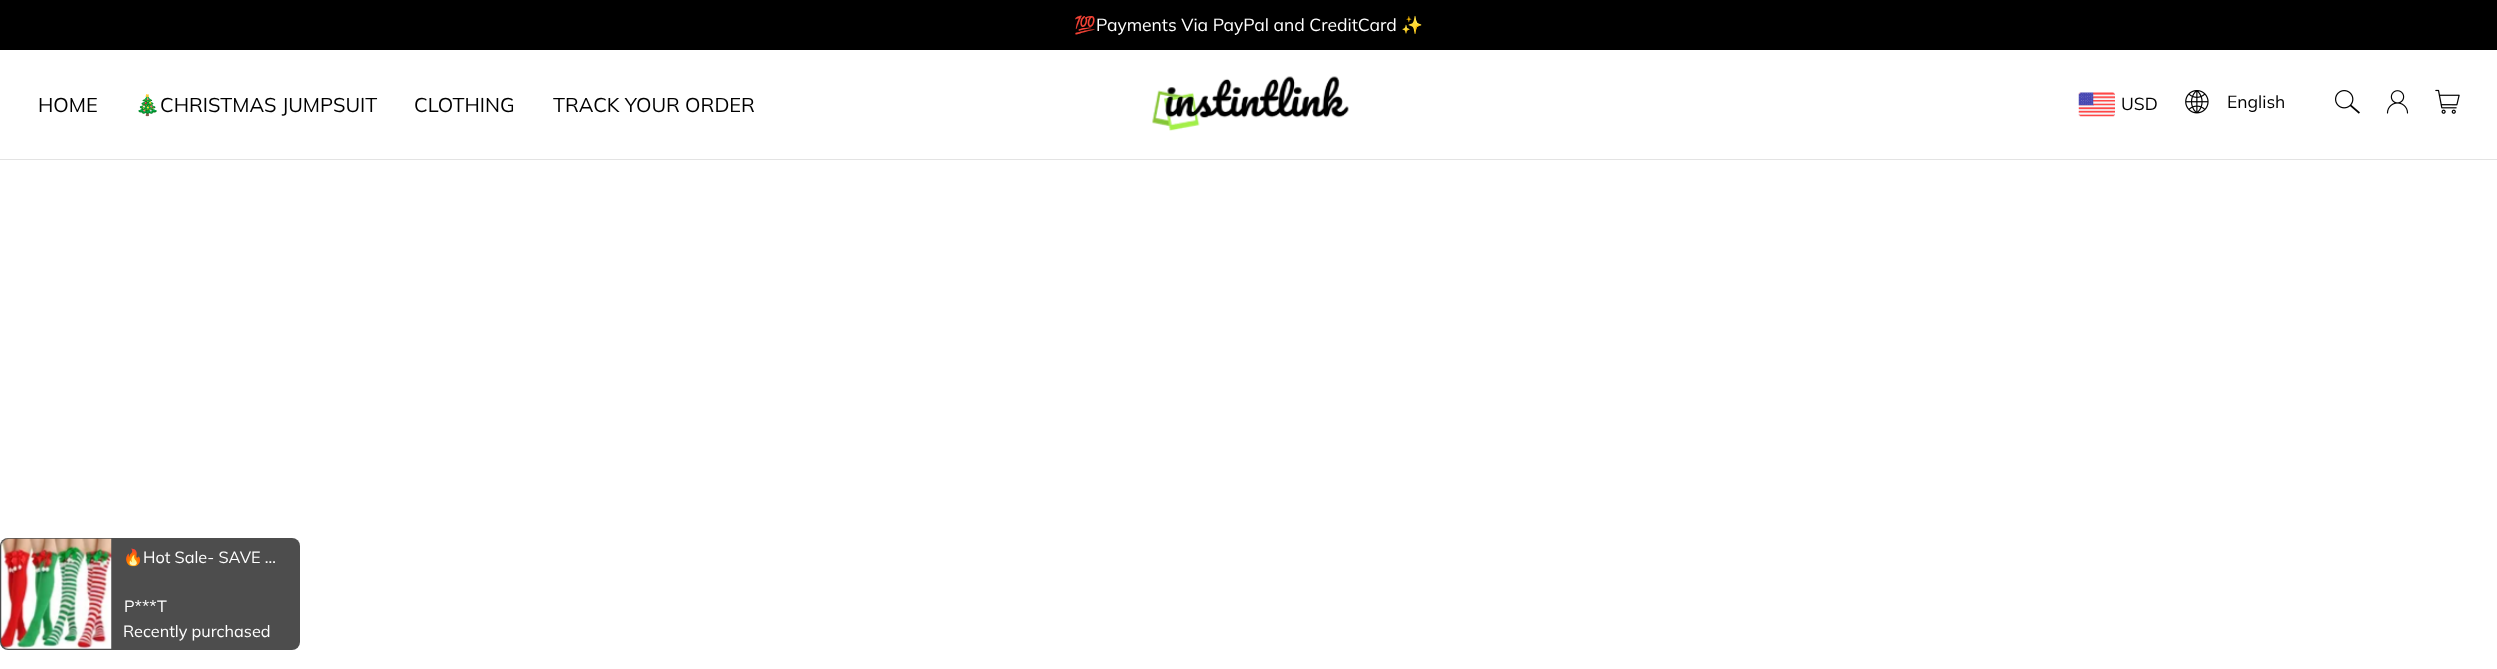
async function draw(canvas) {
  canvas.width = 2497
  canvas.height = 669
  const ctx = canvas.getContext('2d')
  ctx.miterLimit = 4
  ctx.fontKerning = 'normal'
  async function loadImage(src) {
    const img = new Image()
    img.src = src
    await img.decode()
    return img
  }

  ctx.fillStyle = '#fff'
  ctx.fillRect(0, 0, 2497, 669)
  ctx.fillStyle = '#000'
  ctx.fillRect(0, 0, 2497, 50)
  ctx.font = '17.5px Noto Color Emoji'
  ctx.fillStyle = '#fff'
  ctx.fillText('💯', 1074, 31)
  ctx.font = '17.5px Mulish'
  ctx.fillText('Payments Via PayPal and CreditCard', 1096, 31)
  ctx.font = '17.5px Noto Color Emoji'
  ctx.fillText('✨', 1401, 31)
  ctx.fillStyle = '#e3e3e3'
  ctx.beginPath()
  ctx.moveTo(0, 159)
  ctx.lineTo(0, 160)
  ctx.lineTo(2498, 160)
  ctx.lineTo(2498, 51)
  ctx.lineTo(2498, 159)
  ctx.closePath()
  ctx.fill()
  ctx.font = '20px Mulish'
  ctx.fillStyle = '#000'
  ctx.fillText('HOME', 38, 112)
  ctx.font = '20px Noto Color Emoji'
  ctx.fillText('🎄', 135, 112)
  ctx.font = '20px Mulish'
  ctx.fillText('CHRISTMAS JUMPSUIT', 160, 112)
  ctx.fillText('CLOTHING', 414, 112)
  ctx.fillText('TRACK YOUR ORDER', 553, 112)
  ctx.drawImage(await loadImage('image0.png'), 1152, 76, 197, 55)
  ctx.drawImage(await loadImage('image1.png'), 2078, 92, 37, 25)
  ctx.font = '17.5px Mulish'
  ctx.fillText('USD', 2121, 110)
  ctx.drawImage(await loadImage('image2.png'), 2185, 90, 24, 24)
  ctx.fillText('English', 2227, 108)
  ctx.drawImage(await loadImage('image3.png'), 2335, 90, 25, 24)
  ctx.drawImage(await loadImage('image4.png'), 2386, 90, 23, 24)
  ctx.drawImage(await loadImage('image5.png'), 2435, 89, 25, 25)
  ctx.fillStyle = '#4d4d4d'
  ctx.beginPath()
  ctx.roundRect(0, 538, 300, 112, 8)
  ctx.fill()
  ctx.drawImage(await loadImage('image6.png'), 1, 538, 111, 111)
  ctx.save()
  ctx.beginPath()
  ctx.rect(123, 544, 162, 26)
  ctx.clip()
  ctx.font = '16.25px Noto Color Emoji'
  ctx.fillStyle = '#fff'
  ctx.fillText('🔥', 123, 563)
  ctx.restore()
  ctx.font = '16.25px Mulish'
  ctx.fillStyle = '#fff'
  ctx.fillText('Hot Sale- SAVE …', 143, 563)
  ctx.fillText('P***T', 124, 612)
  ctx.fillText('Recently purchased', 123, 637)
}

draw(document.querySelector('canvas'))
